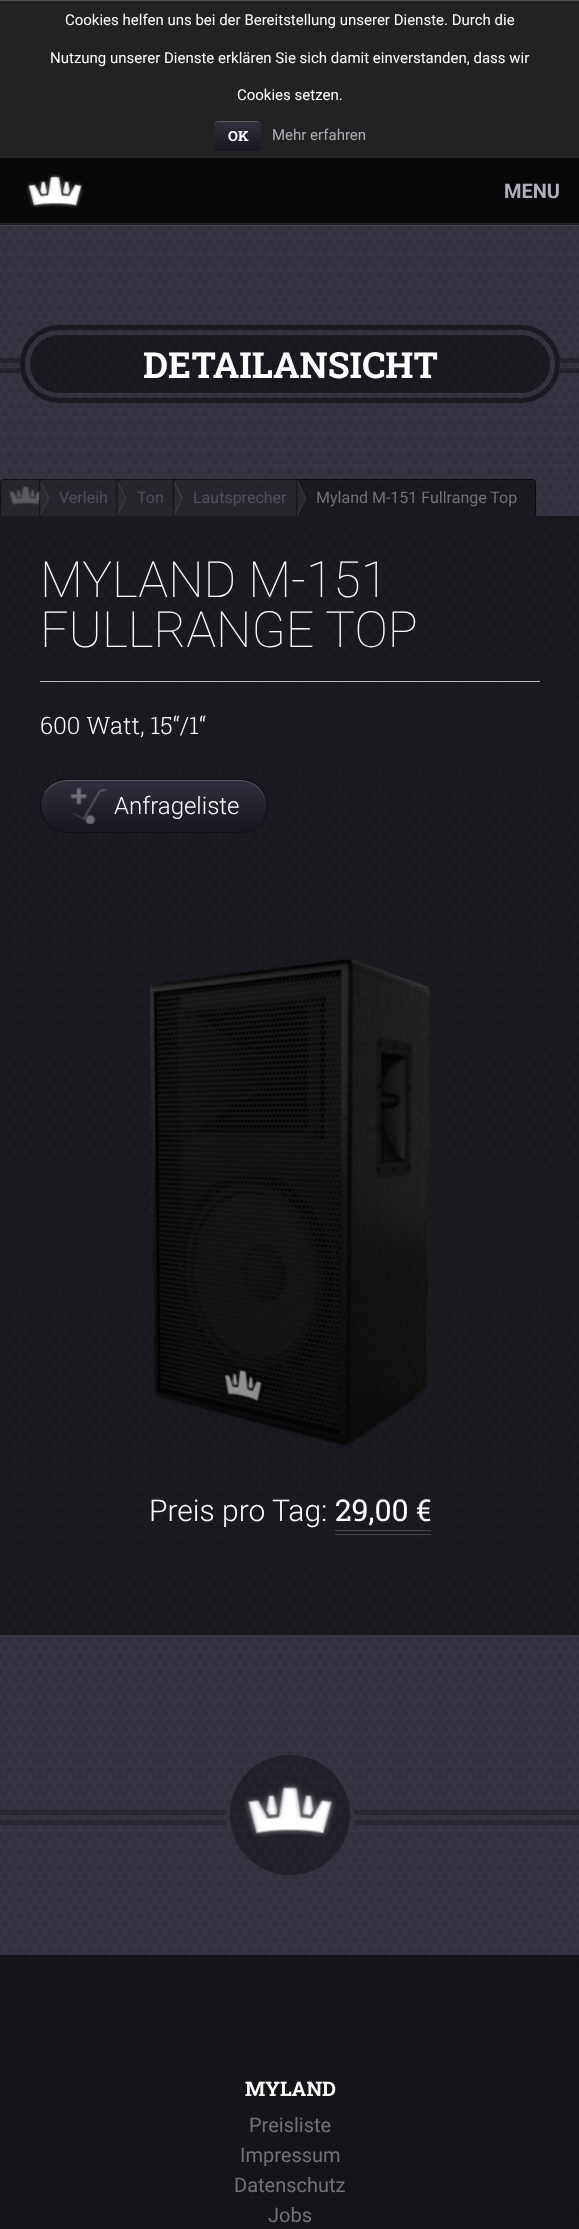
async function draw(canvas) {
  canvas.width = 579
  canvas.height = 2229
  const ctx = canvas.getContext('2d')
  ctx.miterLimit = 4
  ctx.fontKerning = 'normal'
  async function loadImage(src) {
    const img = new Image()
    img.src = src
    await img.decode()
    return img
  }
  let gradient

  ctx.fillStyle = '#31313d'
  ctx.fillRect(0, 0, 579, 2229)
  ctx.fillStyle = '#222'
  ctx.fillRect(0, 1, 579, 157)
  ctx.fillStyle = '#515151'
  ctx.fillRect(0, 0, 579, 1)
  ctx.font = '15px Roboto'
  ctx.fillStyle = '#fff'
  ctx.fillText('Cookies helfen uns bei der Bereitstellung unserer Dienste. Durch die', 65, 25)
  ctx.fillText('Nutzung unserer Dienste erklären Sie sich damit einverstanden, dass wir', 50, 63)
  ctx.fillText('Cookies setzen.', 237, 100)
  gradient = ctx.createLinearGradient(238, 121, 238, 151)
  gradient.addColorStop(0, '#31313d')
  gradient.addColorStop(1, '#161620')
  ctx.fillStyle = gradient
  ctx.beginPath()
  ctx.roundRect(214, 121, 47, 30, 4)
  ctx.fill()
  ctx.fillStyle = '#5b5b60'
  ctx.beginPath()
  ctx.moveTo(218, 122)
  ctx.lineTo(258, 122)
  ctx.bezierCurveTo(260, 122, 261, 124, 261, 126)
  ctx.bezierCurveTo(261, 120, 255, 121, 250, 121)
  ctx.lineTo(224, 121)
  ctx.bezierCurveTo(220, 121, 214, 120, 214, 126)
  ctx.bezierCurveTo(214, 124, 215, 122, 218, 122)
  ctx.closePath()
  ctx.fill()
  ctx.font = 'bold 14px Roboto Slab'
  ctx.fillStyle = '#fff'
  ctx.fillText('OK', 228, 141)
  ctx.font = '15px Roboto'
  ctx.fillStyle = '#afafbb'
  ctx.fillText('Mehr erfahren', 272, 140)
  ctx.drawImage(await loadImage('image0.png'), 0, 158, 579, 2071)
  ctx.fillStyle = '#000000d9'
  ctx.fillRect(0, 158, 579, 67)
  ctx.fillStyle = '#ffffff1a'
  ctx.fillRect(0, 223, 579, 3)
  ctx.drawImage(await loadImage('image1.png'), 26, 174, 58, 34)
  ctx.font = 'bold 20px Roboto'
  ctx.fillStyle = '#afafbb'
  ctx.fillText('MENU', 504, 198)
  ctx.beginPath()
  ctx.roundRect(22.5, 327.5, 535, 73, 36.5)
  ctx.strokeStyle = '#00000080'
  ctx.lineWidth = 5
  ctx.stroke()
  ctx.fillStyle = '#0000004d'
  ctx.fillRect(0, 358, 20, 5)
  ctx.fillRect(0, 368, 20, 5)
  ctx.fillStyle = '#00000080'
  ctx.beginPath()
  ctx.roundRect(30, 335, 520, 58, 29)
  ctx.fill()
  ctx.font = 'bold 36px Roboto Slab'
  ctx.fillStyle = '#fff'
  ctx.fillText('DETAILANSICHT', 143, 378)
  ctx.fillStyle = '#0000004d'
  ctx.fillRect(560, 358, 19, 5)
  ctx.fillRect(560, 368, 19, 5)
  ctx.fillStyle = '#1a1a1a80'
  ctx.beginPath()
  ctx.roundRect(0, 479, 40, 37, [4, 0, 0, 0])
  ctx.fill()
  ctx.fillStyle = '#00000080'
  ctx.beginPath()
  ctx.moveTo(4, 479)
  ctx.lineTo(40, 479)
  ctx.lineTo(40, 516)
  ctx.lineTo(0, 516)
  ctx.lineTo(0, 483)
  ctx.bezierCurveTo(0, 481, 2, 479, 4, 479)
  ctx.closePath()
  ctx.moveTo(4, 480)
  ctx.lineTo(39, 480)
  ctx.lineTo(39, 516)
  ctx.lineTo(1, 516)
  ctx.lineTo(1, 483)
  ctx.bezierCurveTo(1, 481, 2, 480, 4, 480)
  ctx.closePath()
  ctx.fill('evenodd')
  ctx.drawImage(await loadImage('image2.png'), 9, 486, 33, 19)
  ctx.fillStyle = '#1a1a1a80'
  ctx.fillRect(40, 480, 78, 36)
  ctx.fillStyle = '#131316'
  ctx.fillRect(40, 479, 258, 1)
  ctx.fillStyle = '#00000080'
  ctx.fillRect(40, 479, 1, 37)
  ctx.fillStyle = '#53536780'
  ctx.beginPath()
  ctx.moveTo(40, 516)
  ctx.lineTo(40, 480)
  ctx.lineTo(49, 497.5)
  ctx.lineTo(49, 499)
  ctx.closePath()
  ctx.fill()
  ctx.fillStyle = '#1a1a1a80'
  ctx.beginPath()
  ctx.moveTo(39, 516)
  ctx.lineTo(39, 480)
  ctx.lineTo(47.5, 497.5)
  ctx.lineTo(47.5, 499)
  ctx.closePath()
  ctx.fill()
  ctx.fillStyle = '#00000080'
  ctx.fillRect(116, 479, 1, 37)
  ctx.fillStyle = '#1a1a1a80'
  ctx.fillRect(118, 480, 56, 36)
  ctx.fillStyle = '#00000080'
  ctx.fillRect(118, 479, 1, 37)
  ctx.fillStyle = '#53536780'
  ctx.beginPath()
  ctx.moveTo(117.5, 516)
  ctx.lineTo(117.5, 480)
  ctx.lineTo(126, 497.5)
  ctx.lineTo(126, 499)
  ctx.closePath()
  ctx.fill()
  ctx.fillStyle = '#1a1a1a80'
  ctx.beginPath()
  ctx.moveTo(116, 516)
  ctx.lineTo(116, 480)
  ctx.lineTo(125, 497.5)
  ctx.lineTo(125, 499)
  ctx.closePath()
  ctx.fill()
  ctx.font = '16px Roboto'
  ctx.fillStyle = '#4f4f5f'
  ctx.fillText('Verleih', 59, 503)
  ctx.fillStyle = '#00000080'
  ctx.fillRect(173, 479, 1, 37)
  ctx.fillStyle = '#1a1a1a80'
  ctx.fillRect(174, 480, 124, 36)
  ctx.fillStyle = '#00000080'
  ctx.fillRect(174, 479, 1, 37)
  ctx.fillStyle = '#53536780'
  ctx.beginPath()
  ctx.moveTo(174, 516)
  ctx.lineTo(174, 480)
  ctx.lineTo(182.5, 497.5)
  ctx.lineTo(182.5, 499)
  ctx.closePath()
  ctx.fill()
  ctx.fillStyle = '#1a1a1a80'
  ctx.beginPath()
  ctx.moveTo(172.5, 516)
  ctx.lineTo(172.5, 480)
  ctx.lineTo(181, 497.5)
  ctx.lineTo(181, 499)
  ctx.closePath()
  ctx.fill()
  ctx.fillStyle = '#4f4f5f'
  ctx.fillText('Ton', 137, 503)
  ctx.fillStyle = '#00000080'
  ctx.fillRect(296, 479, 1, 37)
  ctx.beginPath()
  ctx.roundRect(298, 479, 238, 37, [0, 4, 0, 0])
  ctx.fill()
  ctx.beginPath()
  ctx.moveTo(298, 479)
  ctx.lineTo(532, 479)
  ctx.bezierCurveTo(534, 479, 536, 481, 536, 483)
  ctx.lineTo(536, 516)
  ctx.lineTo(298, 516)
  ctx.closePath()
  ctx.moveTo(299, 480)
  ctx.lineTo(532, 480)
  ctx.bezierCurveTo(534, 480, 535, 481, 535, 483)
  ctx.lineTo(535, 516)
  ctx.lineTo(299, 516)
  ctx.closePath()
  ctx.fill('evenodd')
  ctx.fillStyle = '#53536780'
  ctx.beginPath()
  ctx.moveTo(297.5, 516)
  ctx.lineTo(297.5, 480)
  ctx.lineTo(306, 497.5)
  ctx.lineTo(306, 499)
  ctx.closePath()
  ctx.fill()
  ctx.fillStyle = '#1a1a1a80'
  ctx.beginPath()
  ctx.moveTo(296, 516)
  ctx.lineTo(296, 480)
  ctx.lineTo(305, 497.5)
  ctx.lineTo(305, 499)
  ctx.closePath()
  ctx.fill()
  ctx.fillStyle = '#4f4f5f'
  ctx.fillText('Lautsprecher', 193, 503)
  ctx.fillStyle = '#737375'
  ctx.fillText('Myland M-151 Fullrange Top', 316, 503)
  ctx.fillStyle = '#00000080'
  ctx.fillRect(0, 516, 579, 1119)
  ctx.fillStyle = '#bababc'
  ctx.fillRect(40, 681, 500, 1)
  ctx.font = '100 50px Roboto'
  ctx.fillStyle = '#fff'
  ctx.fillText('MYLAND M-151', 40, 597)
  ctx.fillText('FULLRANGE TOP', 40, 647)
  ctx.font = '300 24px Roboto Slab'
  ctx.fillText('600 Watt, 15“/1“', 40, 734)
  gradient = ctx.createLinearGradient(154, 780, 154, 831)
  gradient.addColorStop(0, '#31313d')
  gradient.addColorStop(1, '#161620')
  ctx.fillStyle = gradient
  ctx.beginPath()
  ctx.roundRect(41, 780, 225, 51, 25.5)
  ctx.fill()
  ctx.fillStyle = '#5b5b60'
  ctx.beginPath()
  ctx.moveTo(67, 781)
  ctx.lineTo(241, 781)
  ctx.bezierCurveTo(255, 781, 266, 793, 266, 806)
  ctx.bezierCurveTo(266, 791, 255, 780, 240, 780)
  ctx.lineTo(66, 780)
  ctx.bezierCurveTo(52, 780, 41, 791, 41, 806)
  ctx.bezierCurveTo(41, 793, 53, 781, 67, 781)
  ctx.closePath()
  ctx.fill()
  ctx.beginPath()
  ctx.roundRect(40.5, 779.5, 227, 53, 26.5)
  ctx.strokeStyle = '#0f0f17'
  ctx.lineWidth = 1
  ctx.stroke()
  ctx.drawImage(await loadImage('image3.png'), 70, 787, 37, 37)
  ctx.font = '300 24px Roboto'
  ctx.fillStyle = '#fff'
  ctx.fillText('Anfrageliste', 114, 814)
  ctx.drawImage(await loadImage('image4.png'), 149, 959, 281, 487)
  ctx.font = '300 30px Roboto'
  ctx.fillText('Preis pro Tag:', 149, 1521)
  ctx.font = '30px Roboto Slab'
  ctx.fillText('29,00 €', 335, 1521)
  ctx.fillStyle = '#48484d'
  ctx.fillRect(335, 1530, 96, 1)
  ctx.fillStyle = '#48484c'
  ctx.fillRect(335, 1534, 96, 1)
  ctx.fillStyle = '#00000099'
  ctx.fillRect(0, 1955, 579, 274)
  ctx.fillStyle = '#00000059'
  ctx.beginPath()
  ctx.arc(290, 1815, 60, 0, 2 * Math.PI)
  ctx.fill()
  ctx.fillStyle = '#00000033'
  ctx.fillRect(0, 1810, 226, 5)
  ctx.fillRect(0, 1820, 226, 5)
  ctx.drawImage(await loadImage('image5.png'), 244, 1783, 92, 54)
  ctx.fillRect(354, 1810, 225, 5)
  ctx.fillRect(354, 1820, 225, 5)
  ctx.font = 'bold 20px Roboto Slab'
  ctx.fillStyle = '#fff'
  ctx.fillText('MYLAND', 245, 2096)
  ctx.font = '20px Roboto'
  ctx.fillStyle = '#737375'
  ctx.fillText('Preisliste', 249, 2132)
  ctx.fillText('Impressum', 240, 2162)
  ctx.fillText('Datenschutz', 234, 2192)
  ctx.fillText('Jobs', 268, 2222)
}

draw(document.querySelector('canvas'))
